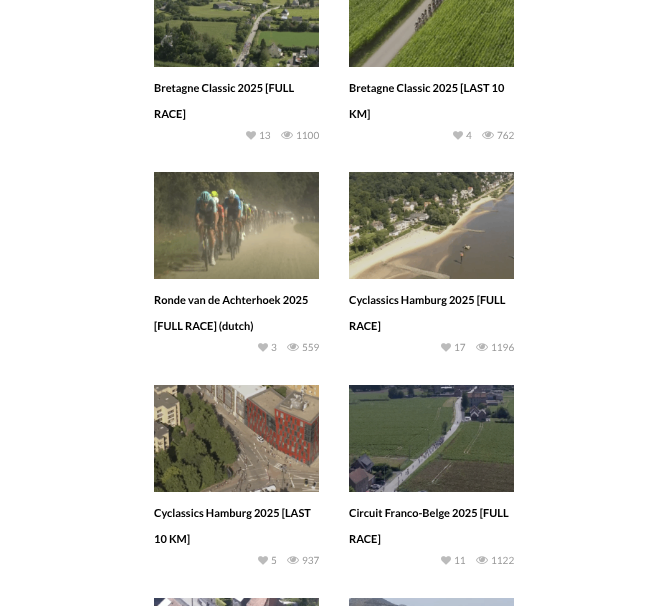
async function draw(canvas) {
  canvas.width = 668
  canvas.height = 606
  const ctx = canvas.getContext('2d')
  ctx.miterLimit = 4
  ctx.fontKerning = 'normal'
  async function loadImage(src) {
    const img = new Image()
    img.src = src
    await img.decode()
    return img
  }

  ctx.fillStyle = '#fff'
  ctx.fillRect(0, 0, 668, 606)
  ctx.drawImage(await loadImage('image0.png'), 154, 0, 165, 67)
  ctx.font = 'bold 11px Lato'
  ctx.fillStyle = '#000'
  ctx.fillText('Bretagne Classic 2025 [FULL', 154, 92)
  ctx.fillText('RACE]', 154, 118)
  ctx.drawImage(await loadImage('image1.png'), 246, 131, 10, 9)
  ctx.font = '10px Lato'
  ctx.fillStyle = '#999'
  ctx.fillText('13', 259, 139)
  ctx.drawImage(await loadImage('image2.png'), 281, 131, 12, 8)
  ctx.fillText('1100', 296, 139)
  ctx.drawImage(await loadImage('image3.png'), 349, 0, 165, 67)
  ctx.font = 'bold 11px Lato'
  ctx.fillStyle = '#000'
  ctx.fillText('Bretagne Classic 2025 [LAST 10', 349, 92)
  ctx.fillText('KM]', 349, 118)
  ctx.drawImage(await loadImage('image1.png'), 453, 131, 10, 9)
  ctx.font = '10px Lato'
  ctx.fillStyle = '#999'
  ctx.fillText('4', 466, 139)
  ctx.drawImage(await loadImage('image2.png'), 482, 131, 12, 8)
  ctx.fillText('762', 497, 139)
  ctx.drawImage(await loadImage('image4.png'), 154, 172, 165, 107)
  ctx.font = 'bold 11px Lato'
  ctx.fillStyle = '#000'
  ctx.fillText('Ronde van de Achterhoek 2025', 154, 304)
  ctx.fillText('[FULL RACE] (dutch)', 154, 330)
  ctx.drawImage(await loadImage('image1.png'), 258, 343, 10, 9)
  ctx.font = '10px Lato'
  ctx.fillStyle = '#999'
  ctx.fillText('3', 271, 351)
  ctx.drawImage(await loadImage('image2.png'), 287, 343, 12, 8)
  ctx.fillText('559', 302, 351)
  ctx.drawImage(await loadImage('image5.png'), 349, 172, 165, 107)
  ctx.font = 'bold 11px Lato'
  ctx.fillStyle = '#000'
  ctx.fillText('Cyclassics Hamburg 2025 [FULL', 349, 304)
  ctx.fillText('RACE]', 349, 330)
  ctx.drawImage(await loadImage('image1.png'), 441, 343, 10, 9)
  ctx.font = '10px Lato'
  ctx.fillStyle = '#999'
  ctx.fillText('17', 454, 351)
  ctx.drawImage(await loadImage('image2.png'), 476, 343, 12, 8)
  ctx.fillText('1196', 491, 351)
  ctx.drawImage(await loadImage('image6.png'), 154, 385, 165, 107)
  ctx.font = 'bold 11px Lato'
  ctx.fillStyle = '#000'
  ctx.fillText('Cyclassics Hamburg 2025 [LAST', 154, 517)
  ctx.fillText('10 KM]', 154, 543)
  ctx.drawImage(await loadImage('image1.png'), 258, 556, 10, 9)
  ctx.font = '10px Lato'
  ctx.fillStyle = '#999'
  ctx.fillText('5', 271, 564)
  ctx.drawImage(await loadImage('image2.png'), 287, 556, 12, 8)
  ctx.fillText('937', 302, 564)
  ctx.drawImage(await loadImage('image7.png'), 349, 385, 165, 107)
  ctx.font = 'bold 11px Lato'
  ctx.fillStyle = '#000'
  ctx.fillText('Circuit Franco-Belge 2025 [FULL', 349, 517)
  ctx.fillText('RACE]', 349, 543)
  ctx.drawImage(await loadImage('image1.png'), 441, 556, 10, 9)
  ctx.font = '10px Lato'
  ctx.fillStyle = '#999'
  ctx.fillText('11', 454, 564)
  ctx.drawImage(await loadImage('image2.png'), 476, 556, 12, 8)
  ctx.fillText('1122', 491, 564)
  ctx.drawImage(await loadImage('image8.png'), 154, 598, 165, 8)
  ctx.drawImage(await loadImage('image9.png'), 349, 598, 165, 8)
}

draw(document.querySelector('canvas'))
